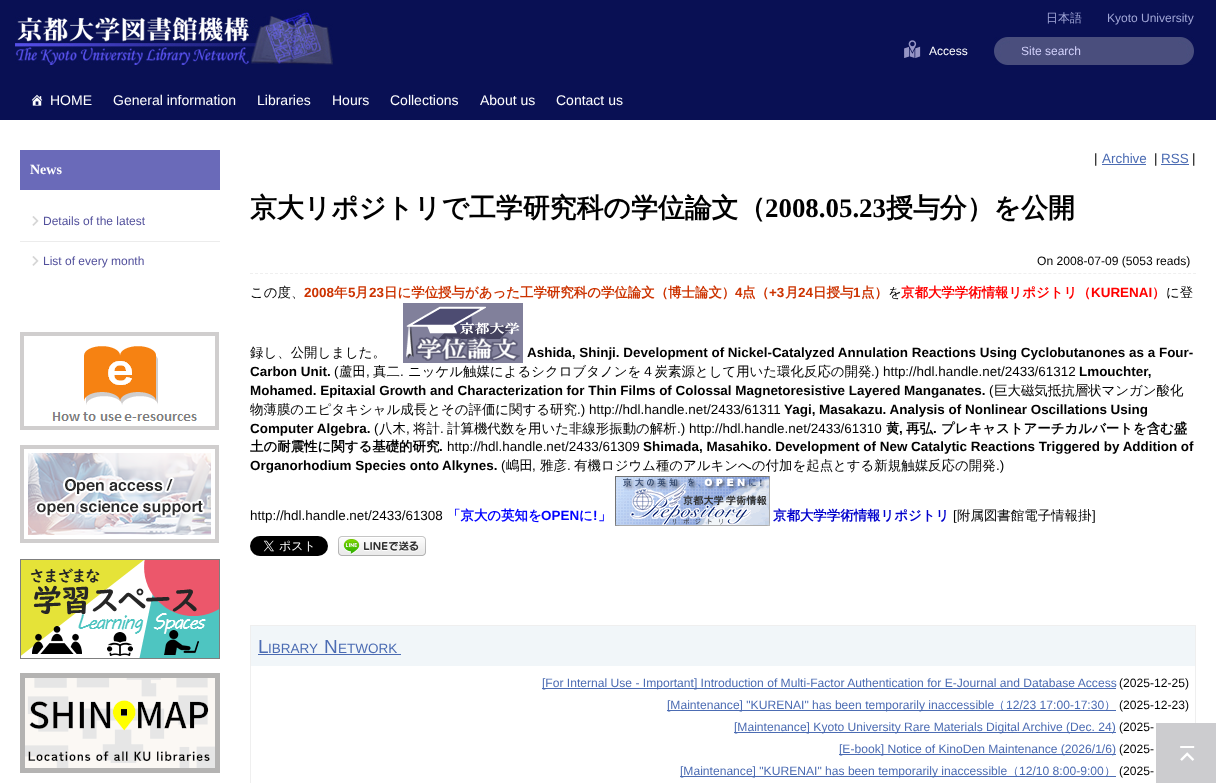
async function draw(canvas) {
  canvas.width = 1216
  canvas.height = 783
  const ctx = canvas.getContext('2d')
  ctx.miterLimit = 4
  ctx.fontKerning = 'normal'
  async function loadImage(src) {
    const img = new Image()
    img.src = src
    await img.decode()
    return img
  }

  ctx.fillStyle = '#fff'
  ctx.fillRect(0, 0, 1216, 783)
  ctx.fillStyle = '#091054'
  ctx.fillRect(0, 0, 1216, 120)
  ctx.drawImage(await loadImage('image0.png'), 15, 9, 318, 56)
  ctx.font = '500 12px WenQuanYi Zen Hei'
  ctx.fillStyle = '#a1a6d6'
  ctx.fillText('日本語', 1046, 22)
  ctx.font = '12px Liberation Sans'
  ctx.fillText('Kyoto University', 1107, 22)
  ctx.drawImage(await loadImage('image1.png'), 904, 40, 17, 18)
  ctx.fillStyle = '#fff'
  ctx.fillText('Access', 929, 55)
  ctx.drawImage(await loadImage('image2.png'), 994, 37, 200, 28)
  ctx.fillStyle = '#d1d0fa'
  ctx.fillText('Site search', 1021, 55)
  ctx.drawImage(await loadImage('image3.png'), 31, 94, 12, 12)
  ctx.font = '14px Liberation Sans'
  ctx.fillStyle = '#fff'
  ctx.fillText('HOME', 50, 105)
  ctx.fillText('General information', 113, 105)
  ctx.fillText('Libraries', 257, 105)
  ctx.fillText('Hours', 332, 105)
  ctx.fillText('Collections', 390, 105)
  ctx.fillText('About us', 480, 105)
  ctx.fillText('Contact us', 556, 105)
  ctx.fillStyle = '#6a6ab9'
  ctx.fillRect(20, 150, 200, 40)
  ctx.font = 'bold 14px Liberation Serif'
  ctx.fillStyle = '#fff'
  ctx.fillText('News', 30, 174)
  ctx.fillStyle = '#ececec'
  ctx.fillRect(20, 241, 200, 1)
  ctx.drawImage(await loadImage('image4.png'), 32, 216, 7, 10)
  ctx.font = '12px Liberation Sans'
  ctx.fillStyle = '#53519c'
  ctx.fillText('Details of the latest', 43, 225)
  ctx.drawImage(await loadImage('image4.png'), 32, 256, 7, 10)
  ctx.fillText('List of every month', 43, 265)
  ctx.drawImage(await loadImage('image5.png'), 20, 332, 200, 98)
  ctx.drawImage(await loadImage('image6.png'), 20, 445, 200, 99)
  ctx.drawImage(await loadImage('image7.png'), 20, 559, 200, 100)
  ctx.drawImage(await loadImage('image8.png'), 20, 673, 200, 100)
  ctx.font = '13.45px Liberation Sans'
  ctx.fillStyle = '#000'
  ctx.fillText('|', 1094, 163)
  ctx.fillStyle = '#4c6cb3'
  ctx.fillText('Archive', 1102, 163)
  ctx.fillRect(1102, 164, 44, 1)
  ctx.fillStyle = '#000'
  ctx.fillText('|', 1154, 163)
  ctx.fillStyle = '#4c6cb3'
  ctx.fillText('RSS', 1161, 163)
  ctx.fillRect(1161, 164, 28, 1)
  ctx.fillStyle = '#000'
  ctx.fillText('|', 1192, 163)
  ctx.font = 'bold 26.9px WenQuanYi Zen Hei'
  ctx.fillText('京大リポジトリで工学研究科の学位論文（', 250, 217)
  ctx.font = 'bold 26.9px Liberation Serif'
  ctx.fillText('2008.05.23', 765, 217)
  ctx.font = 'bold 26.9px WenQuanYi Zen Hei'
  ctx.fillText('授与分）を公開', 886, 217)
  ctx.beginPath()
  ctx.moveTo(250, 273.5)
  ctx.lineTo(1196, 273.5)
  ctx.strokeStyle = '#efefef'
  ctx.setLineDash([3, 1.99])
  ctx.stroke()
  ctx.font = '12.1px Liberation Sans'
  ctx.fillText('On 2008-07-09 (5053 reads)', 1037, 265)
  ctx.font = '500 13.45px WenQuanYi Zen Hei'
  ctx.fillText('この度、', 250, 297)
  ctx.font = 'bold 13.45px Liberation Sans'
  ctx.fillStyle = '#c30'
  ctx.fillText('2008', 304, 297)
  ctx.font = 'bold 13.45px WenQuanYi Zen Hei'
  ctx.fillText('年', 334, 297)
  ctx.font = 'bold 13.45px Liberation Sans'
  ctx.fillText('5', 348, 297)
  ctx.font = 'bold 13.45px WenQuanYi Zen Hei'
  ctx.fillText('月', 355, 297)
  ctx.font = 'bold 13.45px Liberation Sans'
  ctx.fillText('23', 369, 297)
  ctx.font = 'bold 13.45px WenQuanYi Zen Hei'
  ctx.fillText('日に学位授与があった工学研究科の学位論文（博士論文）', 384, 297)
  ctx.font = 'bold 13.45px Liberation Sans'
  ctx.fillText('4', 735, 297)
  ctx.font = 'bold 13.45px WenQuanYi Zen Hei'
  ctx.fillText('点（', 742, 297)
  ctx.font = 'bold 13.45px Liberation Sans'
  ctx.fillText('+3', 769, 297)
  ctx.font = 'bold 13.45px WenQuanYi Zen Hei'
  ctx.fillText('月', 785, 297)
  ctx.font = 'bold 13.45px Liberation Sans'
  ctx.fillText('24', 798, 297)
  ctx.font = 'bold 13.45px WenQuanYi Zen Hei'
  ctx.fillText('日授与', 813, 297)
  ctx.font = 'bold 13.45px Liberation Sans'
  ctx.fillText('1', 853, 297)
  ctx.font = 'bold 13.45px WenQuanYi Zen Hei'
  ctx.fillText('点）', 861, 297)
  ctx.font = '500 13.45px WenQuanYi Zen Hei'
  ctx.fillStyle = '#000'
  ctx.fillText('を', 888, 297)
  ctx.font = 'bold 13.45px WenQuanYi Zen Hei'
  ctx.fillStyle = '#f00'
  ctx.fillText('京都大学学術情報リポジトリ（', 901, 297)
  ctx.font = 'bold 13.45px Liberation Sans'
  ctx.fillText('KURENAI', 1091, 297)
  ctx.font = 'bold 13.45px WenQuanYi Zen Hei'
  ctx.fillText('）', 1152, 297)
  ctx.font = '500 13.45px WenQuanYi Zen Hei'
  ctx.fillStyle = '#000'
  ctx.fillText('に登', 1166, 297)
  ctx.fillText('録し、公開しました。', 250, 357)
  ctx.drawImage(await loadImage('image9.png'), 403, 303, 120, 60)
  ctx.font = 'bold 13.45px Liberation Sans'
  ctx.fillText('Ashida, Shinji. Development of Nickel-Catalyzed Annulation Reactions Using Cyclobutanones as a Four-', 527, 357)
  ctx.fillText('Carbon Unit.', 250, 376)
  ctx.font = '13.45px Liberation Sans'
  ctx.fillText('(', 334, 376)
  ctx.font = '500 13.45px WenQuanYi Zen Hei'
  ctx.fillText('蘆田', 339, 376)
  ctx.font = '13.45px Liberation Sans'
  ctx.fillText(',', 366, 376)
  ctx.font = '500 13.45px WenQuanYi Zen Hei'
  ctx.fillText('真二', 373, 376)
  ctx.font = '13.45px Liberation Sans'
  ctx.fillText('.', 400, 376)
  ctx.font = '500 13.45px WenQuanYi Zen Hei'
  ctx.fillText('ニッケル触媒によるシクロブタノンを４炭素源として用いた環化反応の開発', 408, 376)
  ctx.font = '13.45px Liberation Sans'
  ctx.fillText('.) http://hdl.handle.net/2433/61312', 871, 376)
  ctx.font = 'bold 13.45px Liberation Sans'
  ctx.fillText('Lmouchter,', 1079, 376)
  ctx.fillText('Mohamed. Epitaxial Growth and Characterization for Thin Films of Colossal Magnetoresistive Layered Manganates.', 250, 395)
  ctx.font = '13.45px Liberation Sans'
  ctx.fillText('(', 989, 395)
  ctx.font = '500 13.45px WenQuanYi Zen Hei'
  ctx.fillText('巨大磁気抵抗層状マンガン酸化', 994, 395)
  ctx.fillText('物薄膜のエピタキシャル成長とその評価に関する研究', 250, 414)
  ctx.font = '13.45px Liberation Sans'
  ctx.fillText('.) http://hdl.handle.net/2433/61311', 577, 414)
  ctx.font = 'bold 13.45px Liberation Sans'
  ctx.fillText('Yagi, Masakazu. Analysis of Nonlinear Oscillations Using', 784, 414)
  ctx.fillText('Computer Algebra.', 250, 433)
  ctx.font = '13.45px Liberation Sans'
  ctx.fillText('(', 374, 433)
  ctx.font = '500 13.45px WenQuanYi Zen Hei'
  ctx.fillText('八木', 379, 433)
  ctx.font = '13.45px Liberation Sans'
  ctx.fillText(',', 406, 433)
  ctx.font = '500 13.45px WenQuanYi Zen Hei'
  ctx.fillText('将計', 413, 433)
  ctx.font = '13.45px Liberation Sans'
  ctx.fillText('.', 440, 433)
  ctx.font = '500 13.45px WenQuanYi Zen Hei'
  ctx.fillText('計算機代数を用いた非線形振動の解析', 447, 433)
  ctx.font = '13.45px Liberation Sans'
  ctx.fillText('.) http://hdl.handle.net/2433/61310', 677, 433)
  ctx.font = 'bold 13.45px WenQuanYi Zen Hei'
  ctx.fillText('黄', 886, 433)
  ctx.font = 'bold 13.45px Liberation Sans'
  ctx.fillText(',', 899, 433)
  ctx.font = 'bold 13.45px WenQuanYi Zen Hei'
  ctx.fillText('再弘', 906, 433)
  ctx.font = 'bold 13.45px Liberation Sans'
  ctx.fillText('.', 933, 433)
  ctx.font = 'bold 13.45px WenQuanYi Zen Hei'
  ctx.fillText('プレキャストアーチカルバートを含む盛', 941, 433)
  ctx.fillText('土の耐震性に関する基礎的研究', 250, 451)
  ctx.font = 'bold 13.45px Liberation Sans'
  ctx.fillText('.', 439, 451)
  ctx.font = '13.45px Liberation Sans'
  ctx.fillText('http://hdl.handle.net/2433/61309', 447, 451)
  ctx.font = 'bold 13.45px Liberation Sans'
  ctx.fillText('Shimada, Masahiko. Development of New Catalytic Reactions Triggered by Addition of', 643, 451)
  ctx.fillText('Organorhodium Species onto Alkynes.', 250, 470)
  ctx.font = '13.45px Liberation Sans'
  ctx.fillText('(', 501, 470)
  ctx.font = '500 13.45px WenQuanYi Zen Hei'
  ctx.fillText('嶋田', 506, 470)
  ctx.font = '13.45px Liberation Sans'
  ctx.fillText(',', 532, 470)
  ctx.font = '500 13.45px WenQuanYi Zen Hei'
  ctx.fillText('雅彦', 540, 470)
  ctx.font = '13.45px Liberation Sans'
  ctx.fillText('.', 567, 470)
  ctx.font = '500 13.45px WenQuanYi Zen Hei'
  ctx.fillText('有機ロジウム種のアルキンへの付加を起点とする新規触媒反応の開発', 574, 470)
  ctx.font = '13.45px Liberation Sans'
  ctx.fillText('.)', 996, 470)
  ctx.fillText('http://hdl.handle.net/2433/61308', 250, 520)
  ctx.font = 'bold 13.45px WenQuanYi Zen Hei'
  ctx.fillStyle = '#00f'
  ctx.fillText('「京大の英知を', 447, 520)
  ctx.font = 'bold 13.45px Liberation Sans'
  ctx.fillText('OPEN', 541, 520)
  ctx.font = 'bold 13.45px WenQuanYi Zen Hei'
  ctx.fillText('に', 579, 520)
  ctx.font = 'bold 13.45px Liberation Sans'
  ctx.fillText('!', 593, 520)
  ctx.font = 'bold 13.45px WenQuanYi Zen Hei'
  ctx.fillText('」', 598, 520)
  ctx.drawImage(await loadImage('image10.png'), 615, 476, 155, 50)
  ctx.fillStyle = '#00c'
  ctx.fillText('京都大学学術情報リポジトリ', 773, 520)
  ctx.font = '13.45px Liberation Sans'
  ctx.fillStyle = '#000'
  ctx.fillText('[', 953, 520)
  ctx.font = '500 13.45px WenQuanYi Zen Hei'
  ctx.fillText('附属図書館電子情報掛', 957, 520)
  ctx.font = '13.45px Liberation Sans'
  ctx.fillText(']', 1092, 520)
  ctx.drawImage(await loadImage('image11.png'), 250, 536, 78, 20)
  ctx.drawImage(await loadImage('image12.png'), 338, 536, 88, 20)
  ctx.setLineDash([])
  ctx.strokeRect(250.5, 625.5, 945, 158)
  ctx.fillStyle = '#f1f6f9'
  ctx.fillRect(251, 626, 944, 40)
  ctx.font = '19px Liberation Sans'
  ctx.fillStyle = '#4c6cb3'
  ctx.fillText('L', 258, 653)
  ctx.font = '13.5px Liberation Sans'
  ctx.fillText('IBRARY', 268, 653)
  ctx.font = '19px Liberation Sans'
  ctx.fillText('N', 324, 653)
  ctx.font = '13.5px Liberation Sans'
  ctx.fillText('ETWORK', 338, 653)
  ctx.fillRect(258, 654, 143, 1)
  ctx.fillRect(542, 688, 574, 1)
  ctx.font = '12.1px Liberation Sans'
  ctx.fillText('[For Internal Use - Important] Introduction of Multi-Factor Authentication for E-Journal and Database Access', 542, 687)
  ctx.fillStyle = '#000'
  ctx.fillText('(2025-12-25)', 1119, 687)
  ctx.fillStyle = '#4c6cb3'
  ctx.fillRect(667, 710, 449, 1)
  ctx.fillText('[Maintenance] "KURENAI" has been temporarily inaccessible', 667, 709)
  ctx.font = '500 12.1px WenQuanYi Zen Hei'
  ctx.fillText('（', 993, 709)
  ctx.font = '12.1px Liberation Sans'
  ctx.fillText('12/23 17:00-17:30', 1006, 709)
  ctx.font = '500 12.1px WenQuanYi Zen Hei'
  ctx.fillText('）', 1104, 709)
  ctx.font = '12.1px Liberation Sans'
  ctx.fillStyle = '#000'
  ctx.fillText('(2025-12-23)', 1119, 709)
  ctx.fillStyle = '#4c6cb3'
  ctx.fillRect(734, 732, 382, 1)
  ctx.fillText('[Maintenance] Kyoto University Rare Materials Digital Archive (Dec. 24)', 734, 731)
  ctx.fillStyle = '#000'
  ctx.fillText('(2025-', 1119, 731)
  ctx.fillStyle = '#4c6cb3'
  ctx.fillRect(839, 754, 277, 1)
  ctx.fillText('[E-book] Notice of KinoDen Maintenance (2026/1/6)', 839, 753)
  ctx.fillStyle = '#000'
  ctx.fillText('(2025-', 1119, 753)
  ctx.fillStyle = '#4c6cb3'
  ctx.fillRect(680, 776, 436, 1)
  ctx.fillText('[Maintenance] "KURENAI" has been temporarily inaccessible', 680, 775)
  ctx.font = '500 12.1px WenQuanYi Zen Hei'
  ctx.fillText('（', 1007, 775)
  ctx.font = '12.1px Liberation Sans'
  ctx.fillText('12/10 8:00-9:00', 1019, 775)
  ctx.font = '500 12.1px WenQuanYi Zen Hei'
  ctx.fillText('）', 1104, 775)
  ctx.font = '12.1px Liberation Sans'
  ctx.fillStyle = '#000'
  ctx.fillText('(2025-', 1119, 775)
  ctx.drawImage(await loadImage('image13.png'), 1156, 723, 60, 60)
}

draw(document.querySelector('canvas'))
